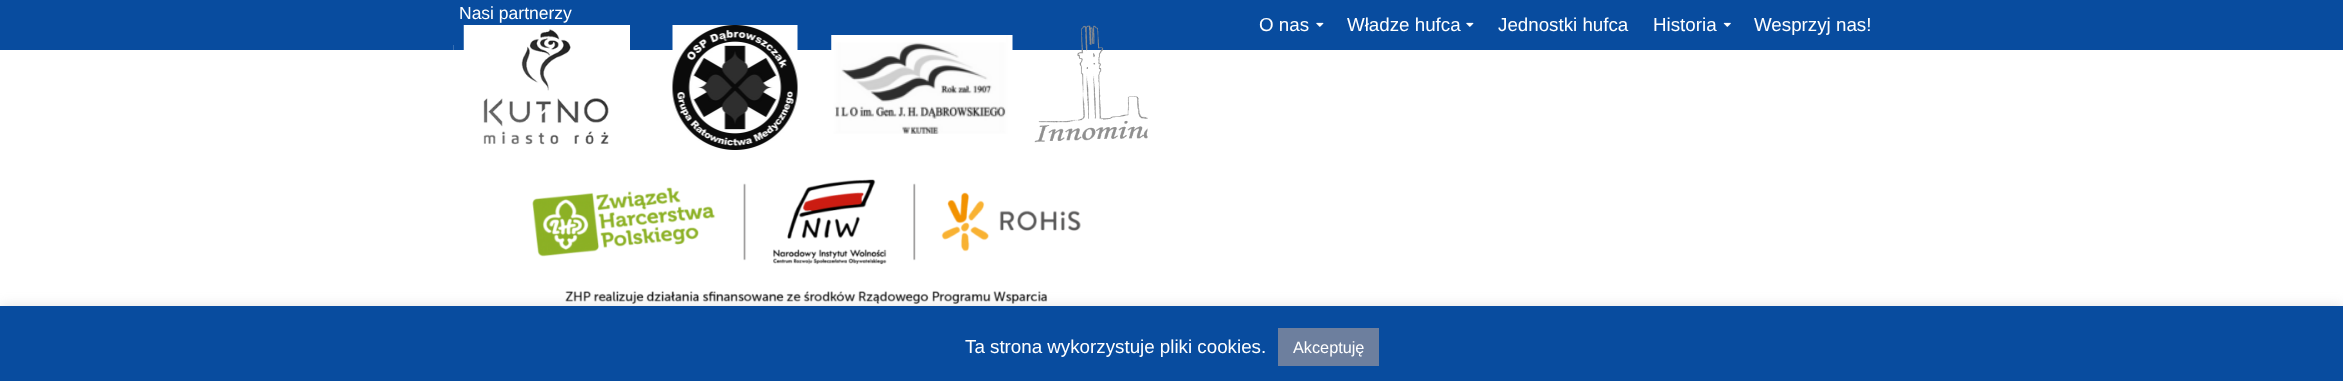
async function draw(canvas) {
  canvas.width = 2343
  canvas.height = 381
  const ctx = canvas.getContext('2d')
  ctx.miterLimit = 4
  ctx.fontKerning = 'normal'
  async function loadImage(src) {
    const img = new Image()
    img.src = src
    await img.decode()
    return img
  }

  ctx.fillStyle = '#fff'
  ctx.fillRect(0, 0, 2343, 381)
  ctx.fillStyle = '#084c9f'
  ctx.fillRect(0, 0, 2343, 50)
  ctx.font = '17.5px Liberation Sans'
  ctx.fillStyle = '#fff'
  ctx.fillText('Nasi partnerzy', 459, 19)
  ctx.fillStyle = '#376eb1'
  ctx.fillRect(453, 45, 1, 5)
  ctx.drawImage(await loadImage('image0.png'), 463, 25, 167, 120)
  ctx.drawImage(await loadImage('image1.png'), 672, 25, 126, 125)
  ctx.drawImage(await loadImage('image2.png'), 831, 35, 182, 99)
  ctx.drawImage(await loadImage('image3.png'), 1034, 25, 114, 118)
  ctx.drawImage(await loadImage('image4.png'), 532, 179, 549, 125)
  ctx.font = '18.75px Liberation Sans'
  ctx.fillStyle = '#fff'
  ctx.fillText('O nas', 1259, 31)
  ctx.drawImage(await loadImage('image5.png'), 1316, 22, 8, 5)
  ctx.fillText('Władze hufca', 1347, 31)
  ctx.drawImage(await loadImage('image5.png'), 1466, 22, 8, 5)
  ctx.fillText('Jednostki hufca', 1498, 31)
  ctx.fillText('Historia', 1653, 31)
  ctx.drawImage(await loadImage('image6.png'), 1723, 22, 8, 5)
  ctx.fillText('Wesprzyj nas!', 1754, 31)
  ctx.fillStyle = '#acabab4d'
  ctx.filter = 'blur(6px)'
  ctx.beginPath()
  ctx.rect(0, 305, 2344, 75)
  ctx.fill()
  ctx.filter = 'none'
  ctx.fillStyle = '#084c9f'
  ctx.fillRect(0, 306, 2343, 75)
  ctx.fillStyle = '#fff'
  ctx.fillText('Ta strona wykorzystuje pliki cookies.', 965, 353)
  ctx.fillStyle = '#6d7f9e'
  ctx.fillRect(1278, 328, 101, 38)
  ctx.font = '16.25px Liberation Sans'
  ctx.fillStyle = '#fff'
  ctx.fillText('Akceptuję', 1293, 353)
}

draw(document.querySelector('canvas'))
